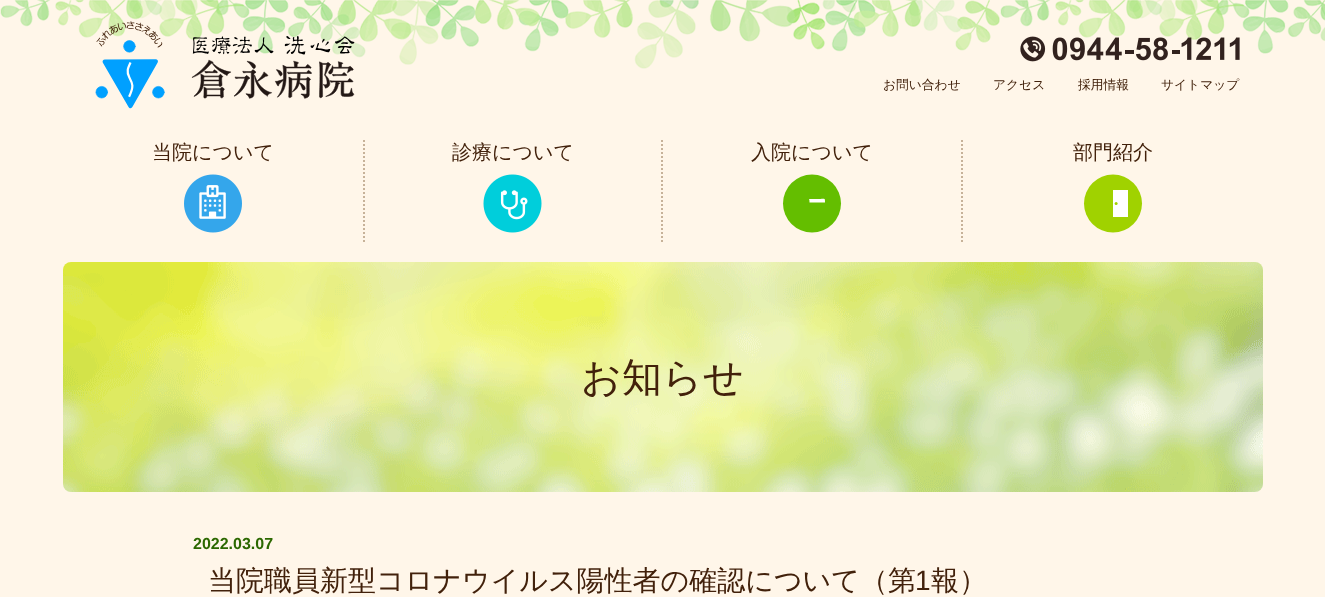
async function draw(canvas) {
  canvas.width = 1325
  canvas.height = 597
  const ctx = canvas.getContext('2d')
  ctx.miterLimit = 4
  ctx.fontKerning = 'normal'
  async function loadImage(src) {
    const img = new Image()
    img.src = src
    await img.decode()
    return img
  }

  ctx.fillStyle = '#fff6e9'
  ctx.fillRect(0, 0, 1325, 597)
  ctx.drawImage(await loadImage('image0.png'), 0, 0, 1325, 69)
  ctx.drawImage(await loadImage('image1.png'), 95, 21, 260, 88)
  ctx.drawImage(await loadImage('image2.png'), 1020, 36, 220, 26)
  ctx.font = '500 12.75px WenQuanYi Zen Hei'
  ctx.fillStyle = '#42210b'
  ctx.fillText('お問い合わせ', 883, 89)
  ctx.fillText('アクセス', 993, 89)
  ctx.fillText('採用情報', 1078, 89)
  ctx.fillText('サイトマップ', 1161, 89)
  ctx.font = '500 20px WenQuanYi Zen Hei'
  ctx.fillText('当院について', 152, 159)
  ctx.drawImage(await loadImage('image3.png'), 184, 174, 58, 59)
  ctx.beginPath()
  ctx.moveTo(662, 140)
  ctx.lineTo(662, 242)
  ctx.strokeStyle = '#c7b299'
  ctx.lineWidth = 2
  ctx.setLineDash([2, 2])
  ctx.stroke()
  ctx.beginPath()
  ctx.moveTo(364, 140)
  ctx.lineTo(364, 242)
  ctx.stroke()
  ctx.fillText('診療について', 452, 159)
  ctx.drawImage(await loadImage('image4.png'), 483, 174, 59, 59)
  ctx.beginPath()
  ctx.moveTo(962, 140)
  ctx.lineTo(962, 242)
  ctx.stroke()
  ctx.fillText('入院について', 751, 159)
  ctx.fillStyle = '#64be00'
  ctx.beginPath()
  ctx.arc(812, 203.5, 29, 0, 2 * Math.PI)
  ctx.fill()
  ctx.fillStyle = '#fff'
  ctx.beginPath()
  ctx.moveTo(822.5, 202.5)
  ctx.lineTo(825, 202.5)
  ctx.bezierCurveTo(825, 197.5, 825, 199, 819, 199)
  ctx.lineTo(809, 199)
  ctx.bezierCurveTo(809.5, 200, 809.5, 201, 809.5, 202.5)
  ctx.closePath()
  ctx.fill()
  ctx.fillStyle = '#42210b'
  ctx.fillText('部門紹介', 1073, 159)
  ctx.fillStyle = '#a0d200'
  ctx.beginPath()
  ctx.arc(1113, 203.5, 29, 0, 2 * Math.PI)
  ctx.fill()
  ctx.fillStyle = '#fff'
  ctx.fillRect(1113, 190, 15, 27)
  ctx.fillStyle = '#a0d200'
  ctx.beginPath()
  ctx.arc(1116.1, 203.6, 1.5, 0, 2 * Math.PI)
  ctx.fill()
  ctx.drawImage(await loadImage('image5.png'), 63, 262, 1200, 230)
  ctx.font = '500 40px WenQuanYi Zen Hei'
  ctx.fillStyle = '#42210b'
  ctx.fillText('お知らせ', 581, 391)
  ctx.font = 'bold 16px Liberation Sans'
  ctx.fillStyle = '#2c6800'
  ctx.fillText('2022.03.07', 193, 549)
  ctx.font = '500 28px WenQuanYi Zen Hei'
  ctx.fillStyle = '#42210b'
  ctx.fillText('当院職員新型コロナウイルス陽性者の確認について（第', 208, 590)
  ctx.font = '28px Liberation Sans'
  ctx.fillText('1', 915, 590)
  ctx.font = '500 28px WenQuanYi Zen Hei'
  ctx.fillText('報）', 931, 590)
}

draw(document.querySelector('canvas'))
